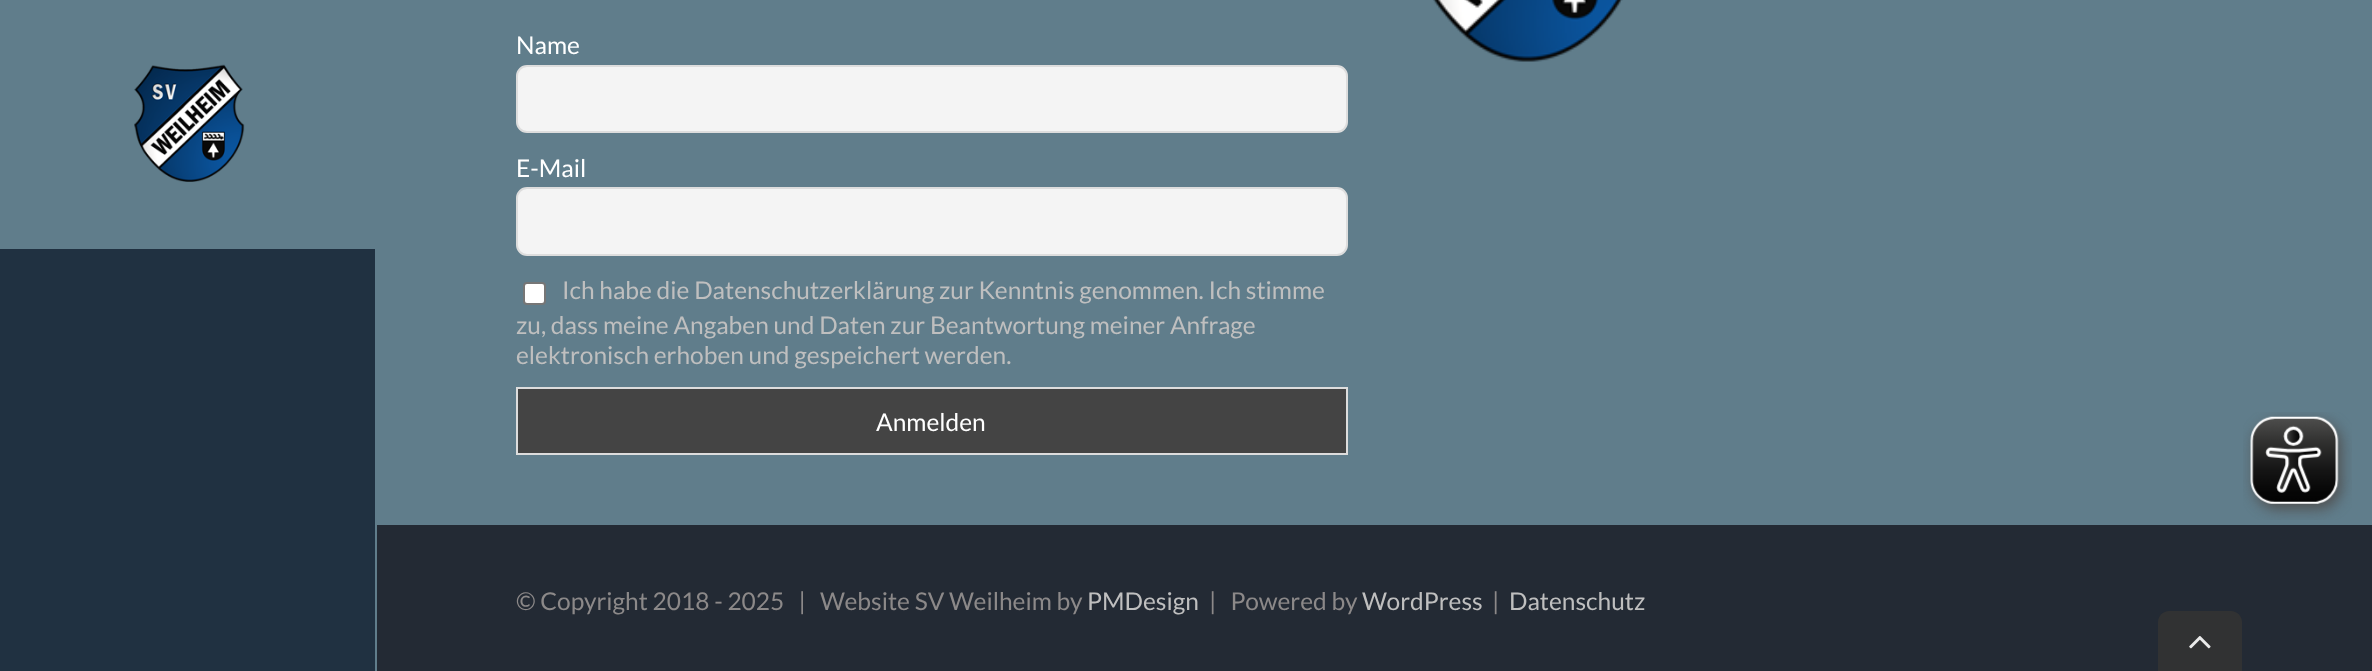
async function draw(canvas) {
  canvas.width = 2372
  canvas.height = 671
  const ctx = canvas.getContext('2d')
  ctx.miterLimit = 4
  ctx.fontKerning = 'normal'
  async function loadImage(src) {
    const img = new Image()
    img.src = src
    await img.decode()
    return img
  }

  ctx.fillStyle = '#607d8b'
  ctx.fillRect(0, 0, 2372, 671)
  ctx.drawImage(await loadImage('image0.png'), 134, 64, 111, 118)
  ctx.fillStyle = '#203141'
  ctx.fillRect(0, 249, 375, 422)
  ctx.font = '24.5px Lato'
  ctx.fillStyle = '#fff'
  ctx.fillText('Name', 516, 54)
  ctx.fillStyle = '#f4f4f4'
  ctx.beginPath()
  ctx.roundRect(517, 66, 830, 66, 10)
  ctx.fill()
  ctx.strokeStyle = '#ddd'
  ctx.lineWidth = 2
  ctx.stroke()
  ctx.fillStyle = '#fff'
  ctx.fillText('E-Mail', 516, 177)
  ctx.fillStyle = '#f4f4f4'
  ctx.beginPath()
  ctx.roundRect(517, 188, 830, 67, 10)
  ctx.fill()
  ctx.stroke()
  ctx.fillStyle = '#fff'
  ctx.beginPath()
  ctx.roundRect(524, 283, 21, 21, 3)
  ctx.fill()
  ctx.strokeStyle = '#767676'
  ctx.stroke()
  ctx.fillStyle = '#bfbfbf'
  ctx.fillText('Ich habe die Datenschutzerklärung zur Kenntnis genommen. Ich stimme', 562, 299)
  ctx.fillText('zu, dass meine Angaben und Daten zur Beantwortung meiner Anfrage', 516, 334)
  ctx.fillText('elektronisch erhoben und gespeichert werden.', 516, 364)
  ctx.fillStyle = '#444'
  ctx.beginPath()
  ctx.rect(517, 388, 830, 66)
  ctx.fill()
  ctx.strokeStyle = '#ddd'
  ctx.stroke()
  ctx.fillStyle = '#fff'
  ctx.fillText('Anmelden', 876, 431)
  ctx.drawImage(await loadImage('image1.png'), 1433, 0, 190, 62)
  ctx.fillStyle = '#232a34'
  ctx.fillRect(377, 525, 1995, 146)
  ctx.fillStyle = '#8c8989'
  ctx.fillText('© Copyright 2018 - 2025   |   Website SV Weilheim by', 516, 610)
  ctx.fillStyle = '#bfbfbf'
  ctx.fillText('PMDesign', 1087, 610)
  ctx.fillStyle = '#8c8989'
  ctx.fillText('|   Powered by', 1209, 610)
  ctx.fillStyle = '#bfbfbf'
  ctx.fillText('WordPress', 1362, 610)
  ctx.fillStyle = '#8c8989'
  ctx.fillText('|', 1492, 610)
  ctx.fillStyle = '#bfbfbf'
  ctx.fillText('Datenschutz', 1509, 610)
  ctx.drawImage(await loadImage('image2.png'), 2243, 412, 109, 108)
  ctx.fillStyle = '#313233'
  ctx.beginPath()
  ctx.moveTo(2169, 611)
  ctx.lineTo(2231, 611)
  ctx.bezierCurveTo(2237, 611, 2242, 616, 2242, 622)
  ctx.lineTo(2242, 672)
  ctx.lineTo(2158, 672)
  ctx.lineTo(2158, 622)
  ctx.bezierCurveTo(2158, 616, 2163, 611, 2169, 611)
  ctx.closePath()
  ctx.fill()
  ctx.drawImage(await loadImage('image3.png'), 2189, 636, 22, 13)
}

draw(document.querySelector('canvas'))
